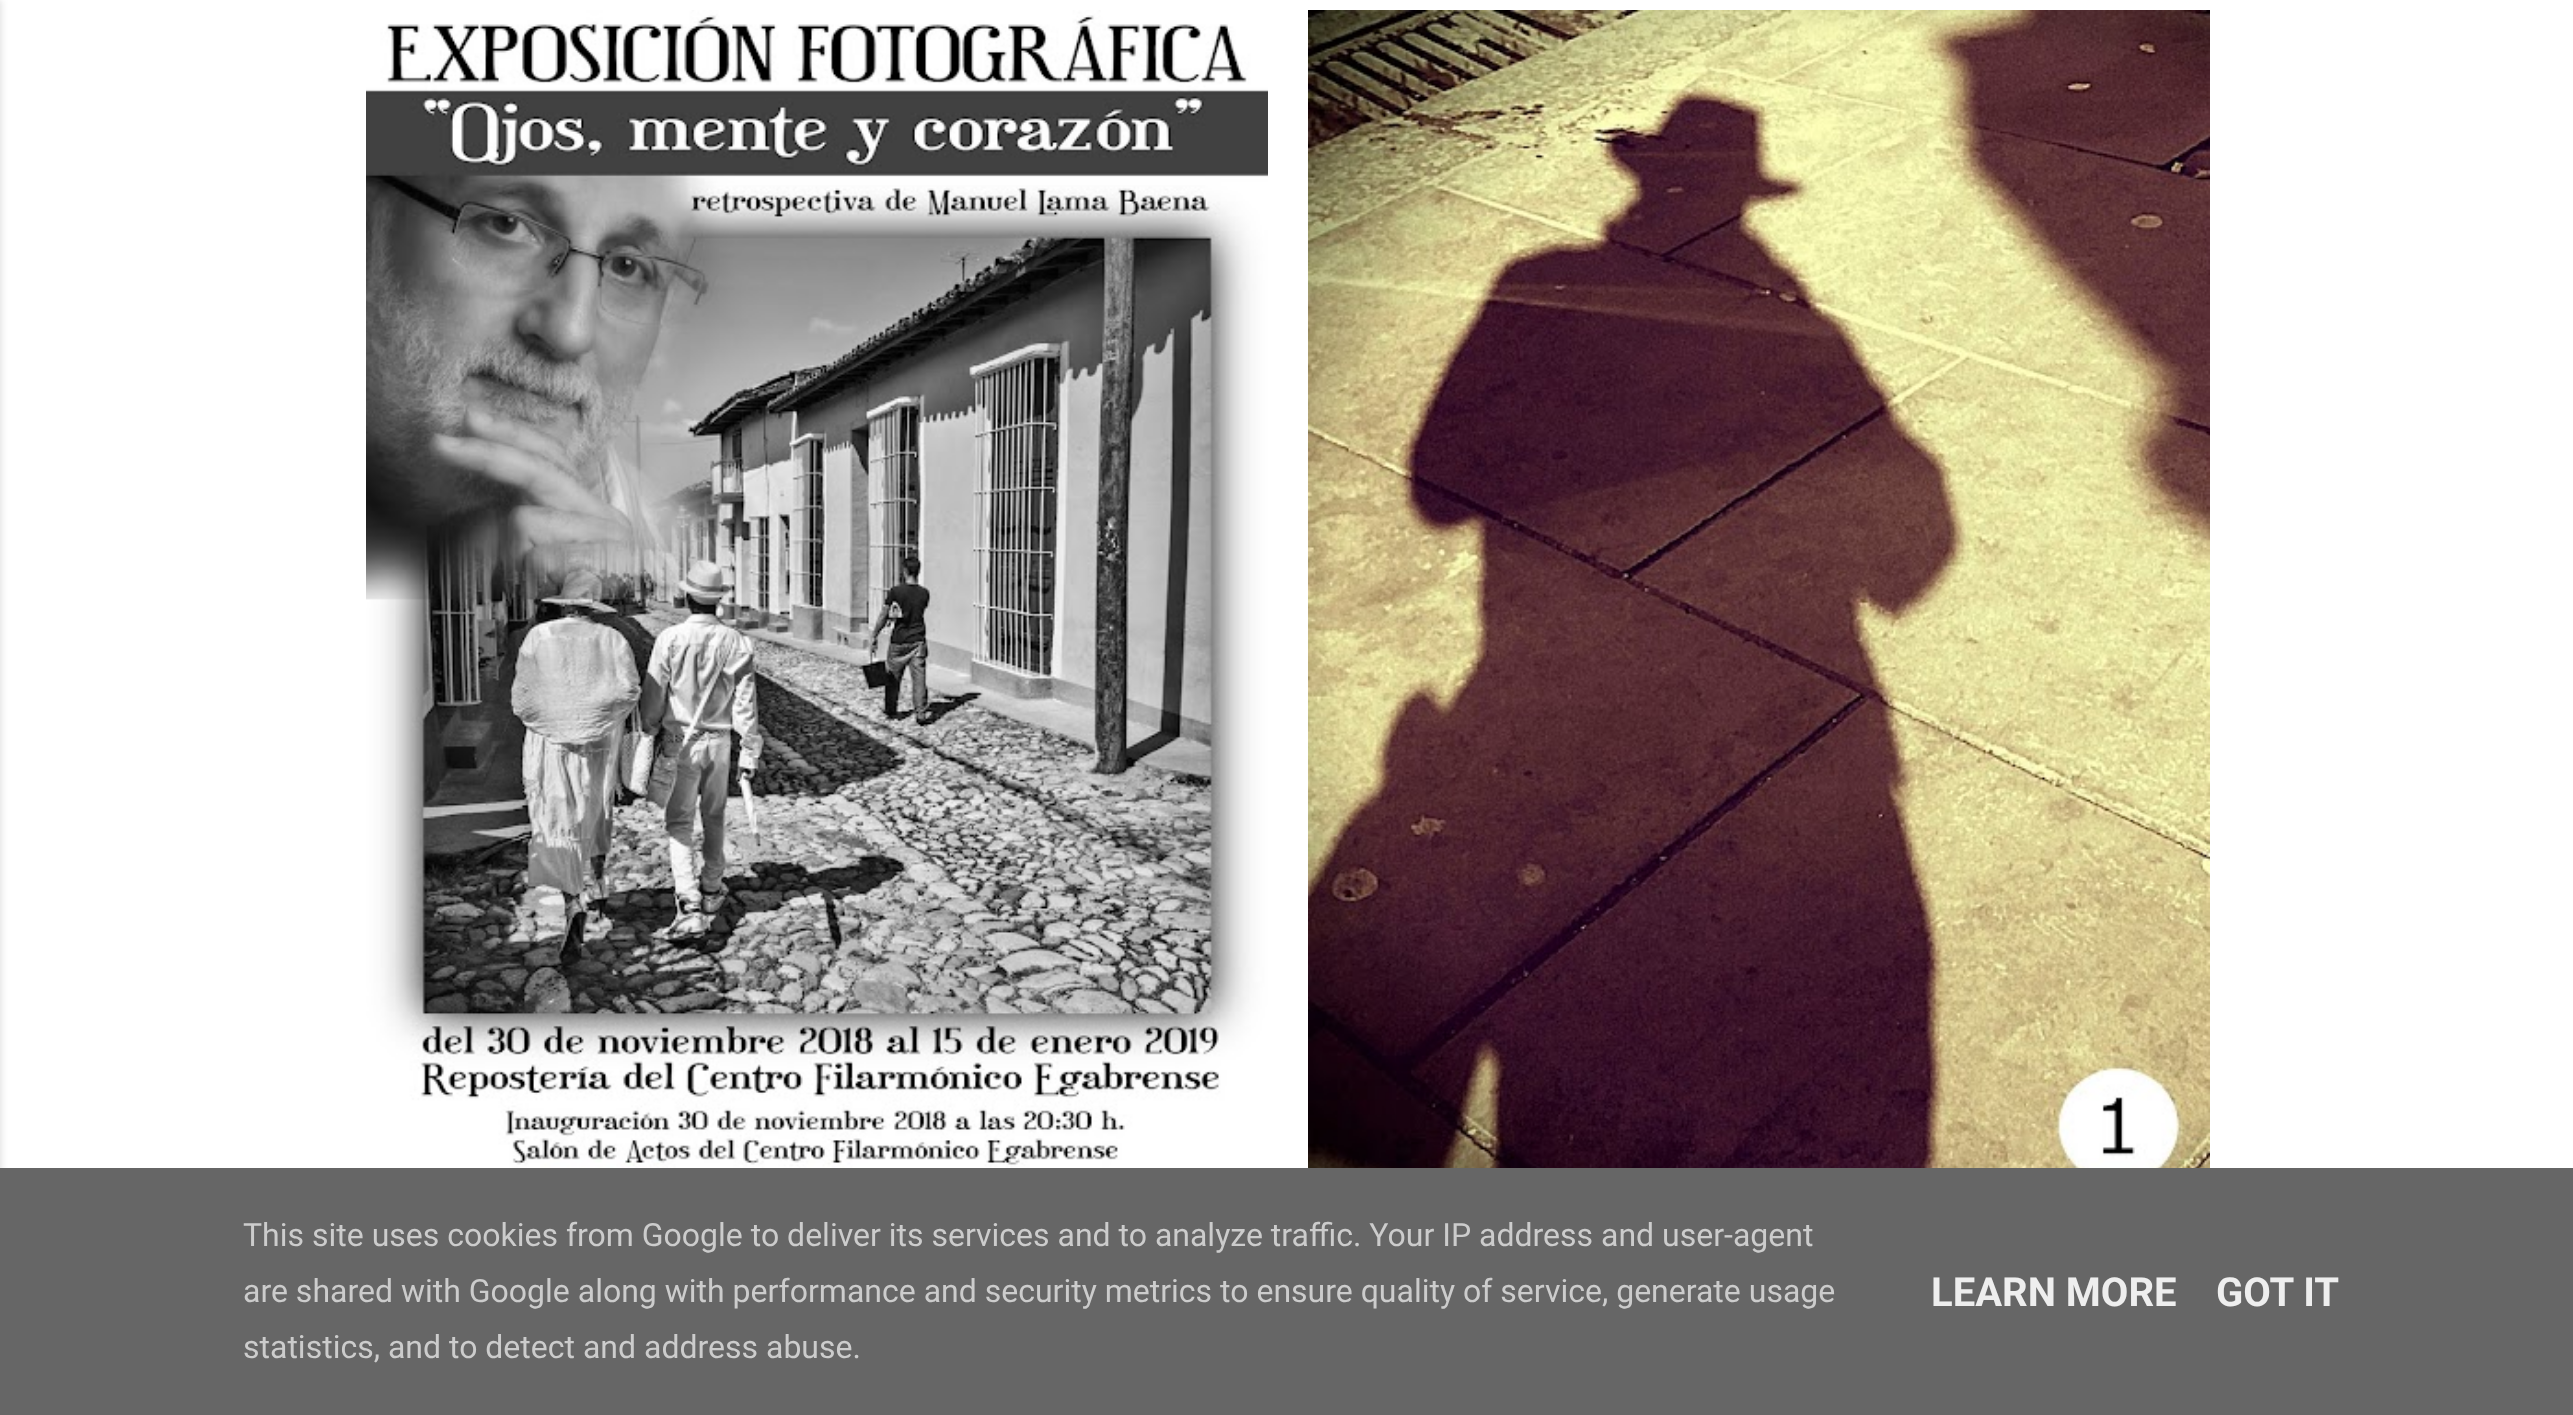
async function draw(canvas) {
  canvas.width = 2573
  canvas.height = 1415
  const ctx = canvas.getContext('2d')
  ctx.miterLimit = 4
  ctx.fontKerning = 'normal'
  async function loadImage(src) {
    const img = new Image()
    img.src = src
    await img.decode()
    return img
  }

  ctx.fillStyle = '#fff'
  ctx.fillRect(0, 0, 2573, 1415)
  ctx.fillStyle = '#0000001a'
  ctx.filter = 'blur(3px)'
  ctx.beginPath()
  ctx.rect(-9, 0, 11, 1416)
  ctx.fill()
  ctx.filter = 'none'
  ctx.drawImage(await loadImage('image0.png'), 366, 10, 902, 1158)
  ctx.drawImage(await loadImage('image1.png'), 1308, 10, 902, 1158)
  ctx.fillStyle = '#666'
  ctx.fillRect(0, 1168, 2573, 247)
  ctx.font = '32px Roboto'
  ctx.fillStyle = '#ccc'
  ctx.fillText('This site uses cookies from Google to deliver its services and to analyze traffic. Your IP address and user-agent', 243, 1246)
  ctx.fillText('are shared with Google along with performance and security metrics to ensure quality of service, generate usage', 243, 1302)
  ctx.fillText('statistics, and to detect and address abuse.', 243, 1358)
  ctx.font = 'bold 40px Roboto'
  ctx.fillStyle = '#eee'
  ctx.fillText('LEARN MORE', 1931, 1306)
  ctx.fillText('GOT IT', 2216, 1306)
}

draw(document.querySelector('canvas'))
